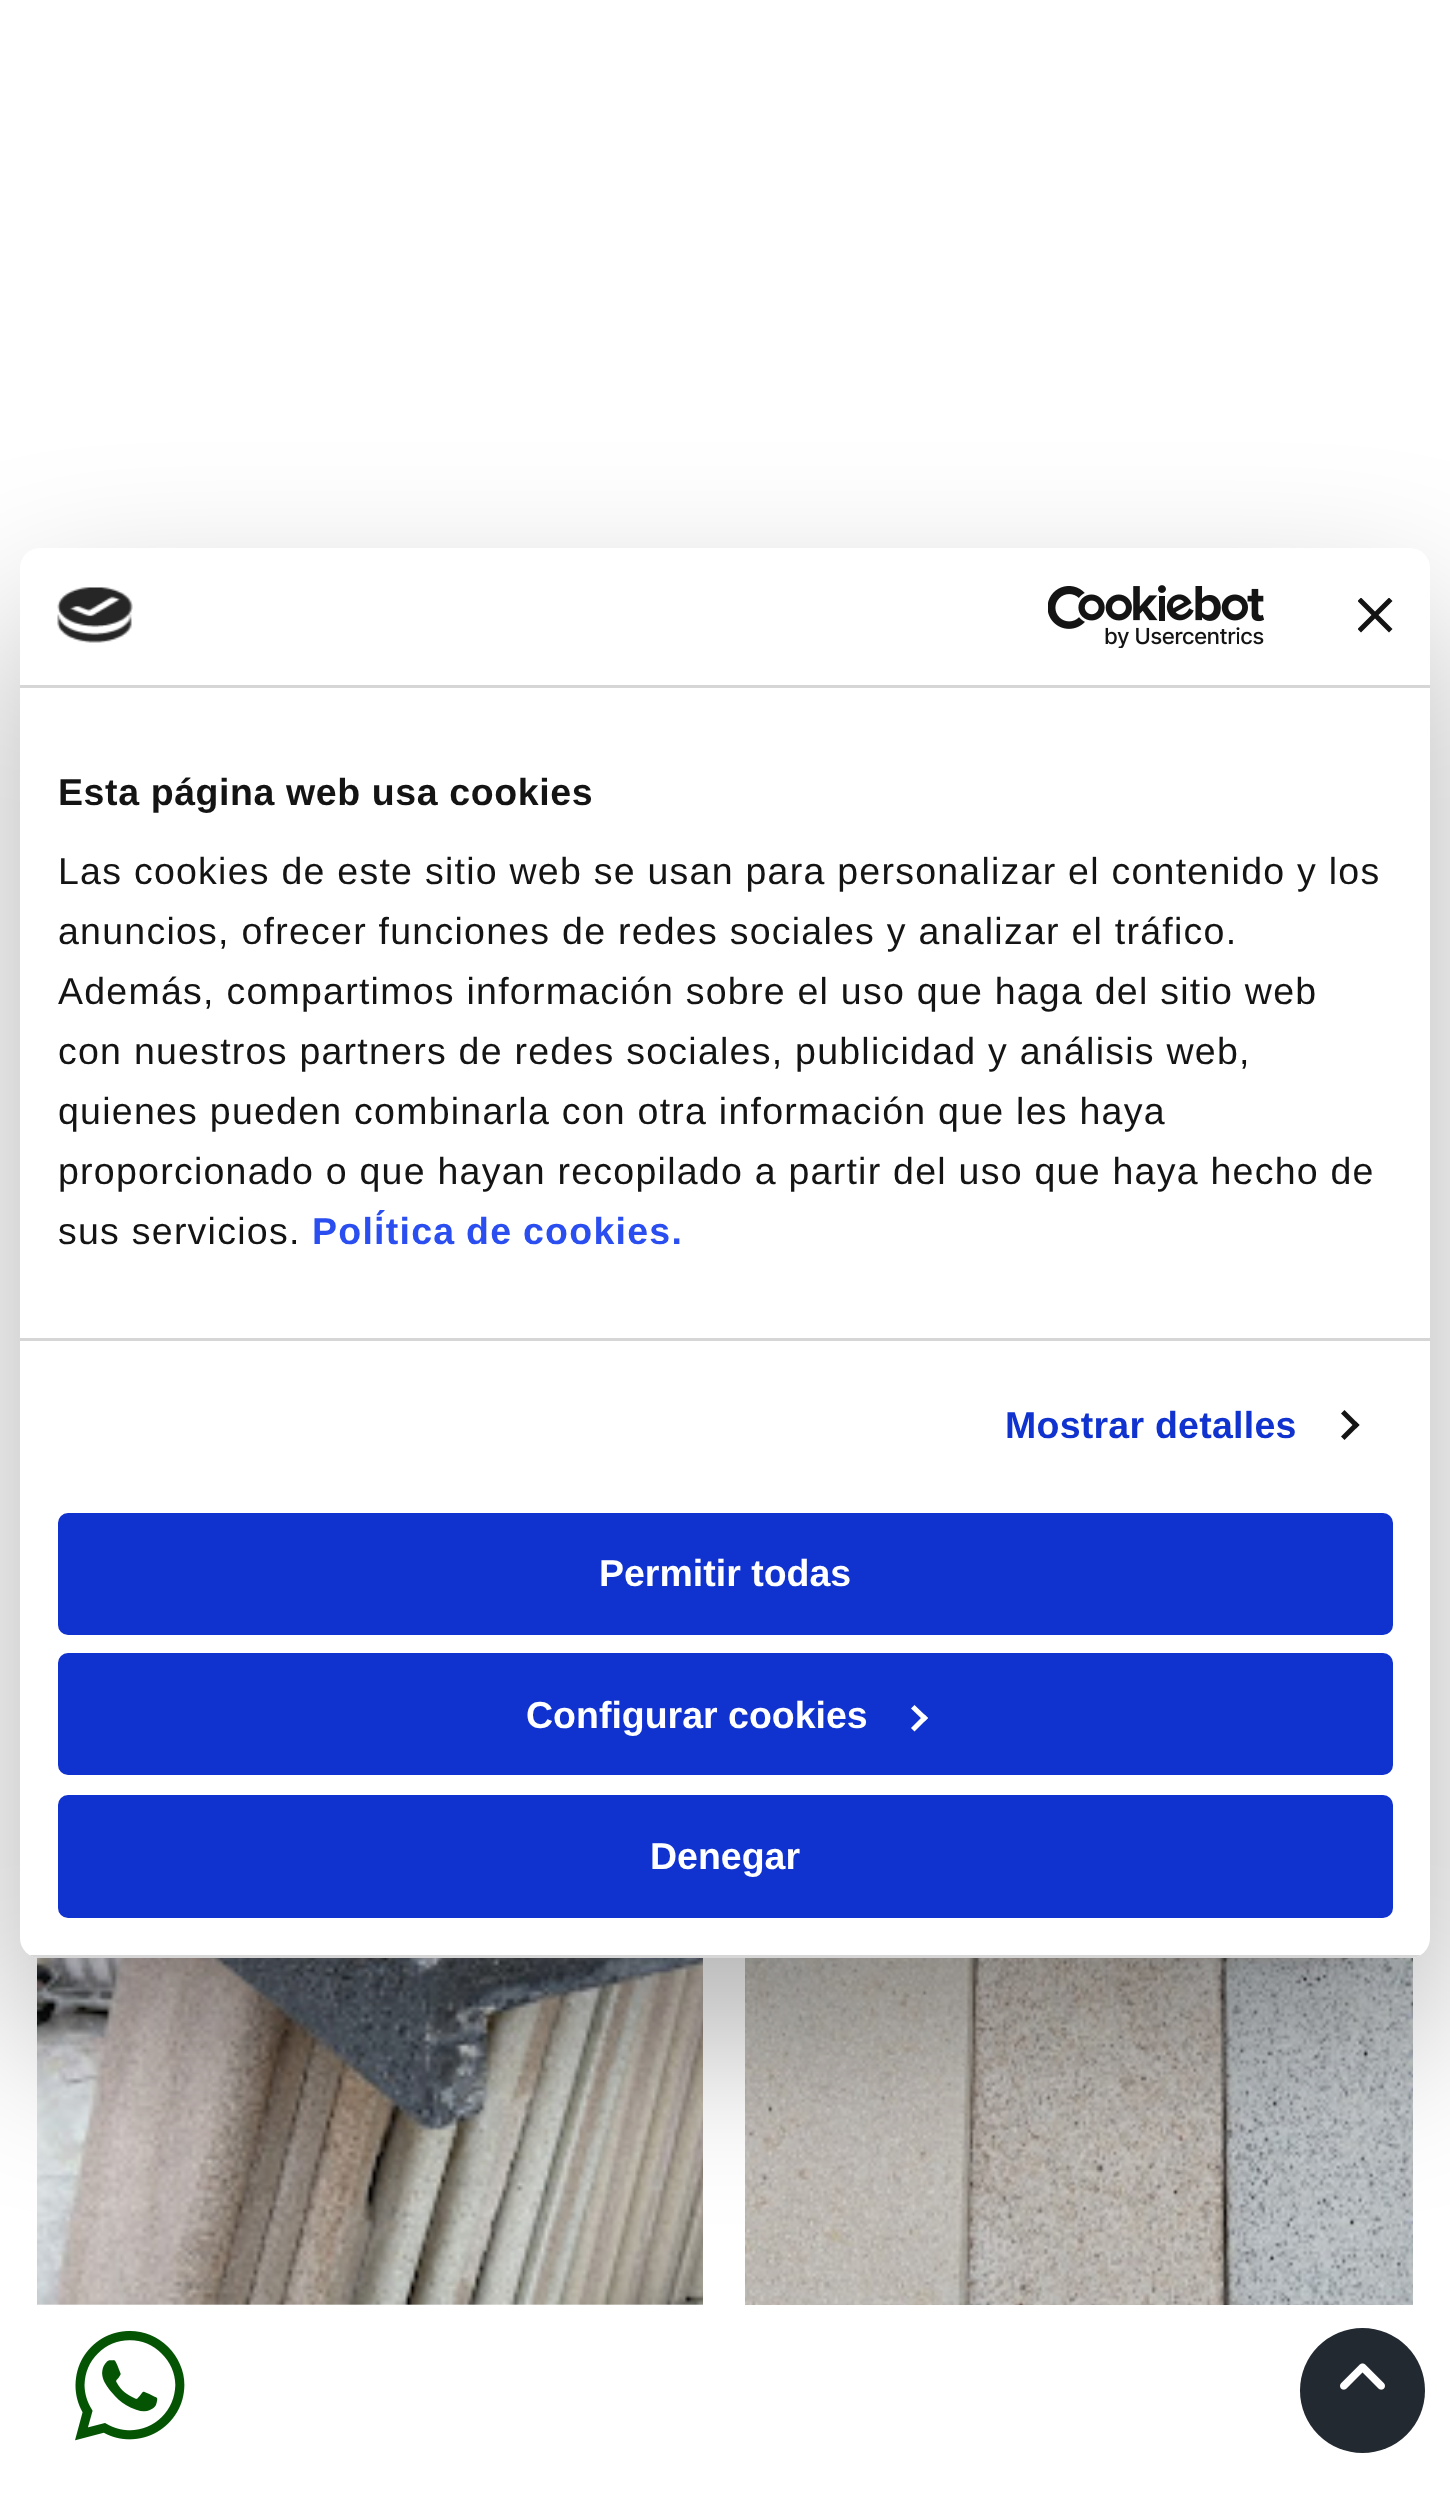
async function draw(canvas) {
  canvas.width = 1450
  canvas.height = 2501
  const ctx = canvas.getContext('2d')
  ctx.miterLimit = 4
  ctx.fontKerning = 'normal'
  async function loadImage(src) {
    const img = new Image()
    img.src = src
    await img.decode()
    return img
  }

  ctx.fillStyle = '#fff'
  ctx.fillRect(0, 0, 1450, 2501)
  ctx.drawImage(await loadImage('image2.png'), 37, 1957, 666, 348)
  ctx.drawImage(await loadImage('image3.png'), 745, 1957, 668, 348)
  ctx.fillStyle = '#0000004d'
  ctx.filter = 'blur(85px)'
  ctx.beginPath()
  ctx.roundRect(20, 628, 1410, 1410, 20)
  ctx.fill()
  ctx.filter = 'none'
  ctx.fillStyle = '#fff'
  ctx.beginPath()
  ctx.roundRect(20, 548, 1410, 1410, 20)
  ctx.fill()
  ctx.fillStyle = '#d6d6d6'
  ctx.fillRect(20, 685, 1410, 3)
  ctx.drawImage(await loadImage('image0.png'), 57, 587, 76, 56)
  ctx.drawImage(await loadImage('image1.png'), 1048, 585, 216, 63)
  ctx.save()
  ctx.beginPath()
  ctx.rect(1358, 598, 35, 35)
  ctx.clip()
  ctx.fillStyle = '#141414'
  ctx.beginPath()
  ctx.moveTo(1392.5, 601)
  ctx.lineTo(1389, 597.5)
  ctx.lineTo(1375, 611.5)
  ctx.lineTo(1361, 597.5)
  ctx.lineTo(1357.5, 601)
  ctx.lineTo(1371.5, 615)
  ctx.lineTo(1357.5, 629)
  ctx.lineTo(1361, 632.5)
  ctx.lineTo(1375, 618.5)
  ctx.lineTo(1389, 632.5)
  ctx.lineTo(1392.5, 629)
  ctx.lineTo(1378.5, 615)
  ctx.closePath()
  ctx.fill()
  ctx.restore()
  ctx.fillRect(20, 1338, 1410, 3)
  ctx.letterSpacing = '0.6px'
  ctx.font = 'bold 37.5px Liberation Sans'
  ctx.fillStyle = '#141414'
  ctx.fillText('Esta página web usa cookies', 58, 805)
  ctx.letterSpacing = '1.25px'
  ctx.font = '37.5px Liberation Sans'
  ctx.fillText('Las cookies de este sitio web se usan para personalizar el contenido y los', 58, 884)
  ctx.fillText('anuncios, ofrecer funciones de redes sociales y analizar el tráfico.', 58, 944)
  ctx.fillText('Además, compartimos información sobre el uso que haga del sitio web', 58, 1004)
  ctx.fillText('con nuestros partners de redes sociales, publicidad y análisis web,', 58, 1064)
  ctx.fillText('quienes pueden combinarla con otra información que les haya', 58, 1124)
  ctx.fillText('proporcionado o que hayan recopilado a partir del uso que haya hecho de', 58, 1184)
  ctx.fillText('sus servicios.', 58, 1244)
  ctx.wordSpacing = '-1px'
  ctx.font = 'bold 37.5px Liberation Sans'
  ctx.fillStyle = '#2a4eef'
  ctx.fillText('Política de cookies.', 312, 1244)
  ctx.letterSpacing = '0.25px'
  ctx.wordSpacing = '0px'
  ctx.fillStyle = '#1032cf'
  ctx.fillText('Mostrar detalles', 1005, 1438)
  ctx.fillStyle = '#141414'
  ctx.beginPath()
  ctx.moveTo(1344.5, 1410)
  ctx.lineTo(1359.5, 1425)
  ctx.lineTo(1356, 1428.5)
  ctx.lineTo(1341, 1413.5)
  ctx.closePath()
  ctx.fill()
  ctx.beginPath()
  ctx.moveTo(1356, 1421.5)
  ctx.lineTo(1359.5, 1425)
  ctx.lineTo(1344.5, 1440)
  ctx.lineTo(1341, 1436.5)
  ctx.closePath()
  ctx.fill()
  ctx.save()
  ctx.beginPath()
  ctx.roundRect(20, 548, 1410, 1410, 20)
  ctx.clip()
  ctx.fillStyle = '#d6d6d6'
  ctx.fillRect(29, 1955, 1392, 3)
  ctx.restore()
  ctx.fillStyle = '#1032cf'
  ctx.beginPath()
  ctx.roundRect(60.5, 1515.5, 1330, 117, 7.5)
  ctx.fill()
  ctx.strokeStyle = '#1032cf'
  ctx.lineWidth = 5
  ctx.stroke()
  ctx.letterSpacing = '0px'
  ctx.fillStyle = '#fff'
  ctx.fillText('Permitir todas', 599, 1586)
  ctx.fillStyle = '#1032cf'
  ctx.beginPath()
  ctx.roundRect(60.5, 1655.5, 1330, 117, 7.5)
  ctx.fill()
  ctx.stroke()
  ctx.fillStyle = '#fff'
  ctx.fillText('Configurar cookies', 526, 1728)
  ctx.beginPath()
  ctx.moveTo(914.5, 1705)
  ctx.lineTo(928, 1718)
  ctx.lineTo(924.5, 1721.5)
  ctx.lineTo(911, 1708.5)
  ctx.closePath()
  ctx.fill()
  ctx.beginPath()
  ctx.moveTo(924.5, 1714.5)
  ctx.lineTo(928, 1718)
  ctx.lineTo(914.5, 1731.5)
  ctx.lineTo(911, 1728)
  ctx.closePath()
  ctx.fill()
  ctx.fillStyle = '#1032cf'
  ctx.beginPath()
  ctx.roundRect(60.5, 1797.5, 1330, 118, 7.5)
  ctx.fill()
  ctx.stroke()
  ctx.fillStyle = '#fff'
  ctx.fillText('Denegar', 650, 1869)
  ctx.drawImage(await loadImage('image4.png'), 75, 2330, 110, 111)
  ctx.fillStyle = '#222931'
  ctx.beginPath()
  ctx.arc(1362.5, 2390.5, 62.5, 0, 2 * Math.PI)
  ctx.fill()
  ctx.drawImage(await loadImage('image5.png'), 1340, 2363, 45, 27)
}

draw(document.querySelector('canvas'))
